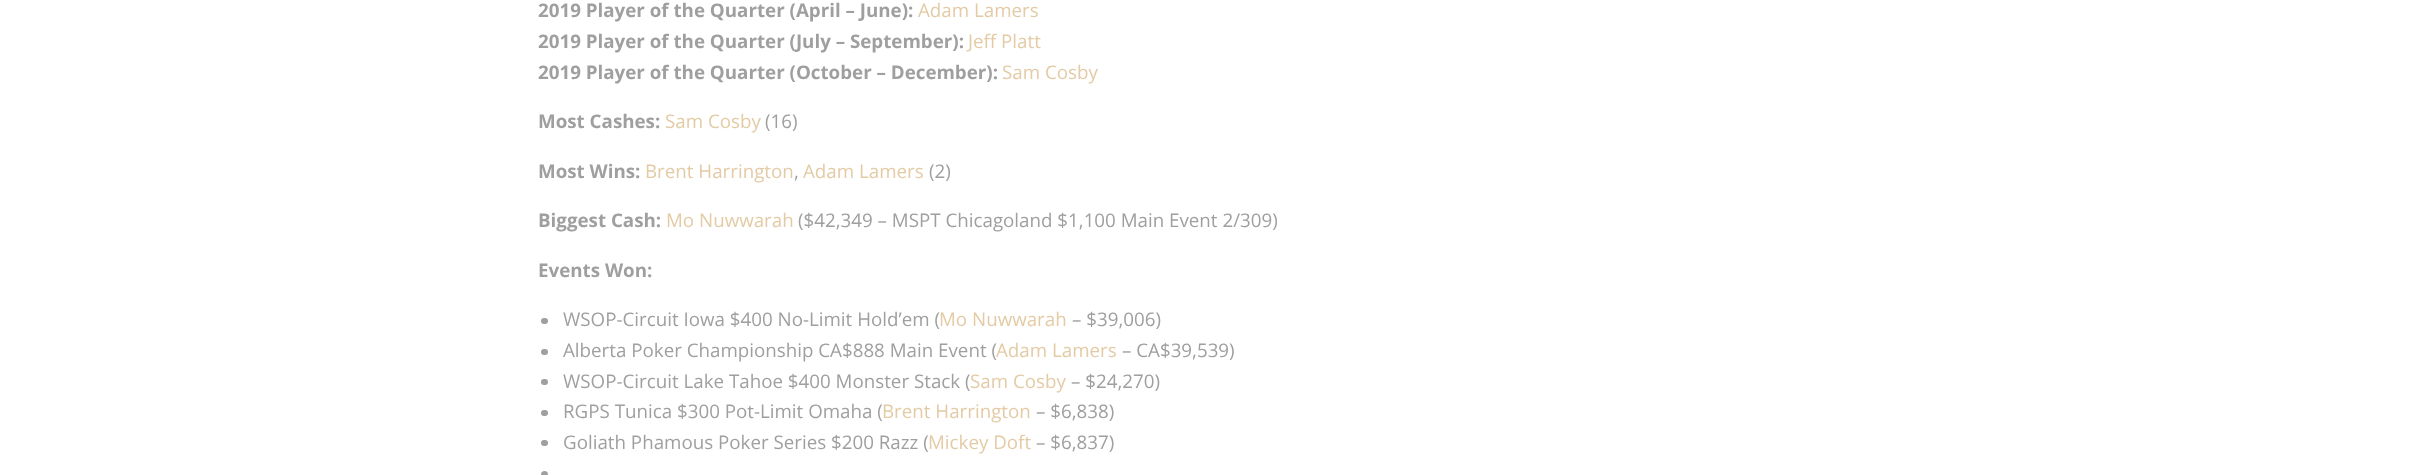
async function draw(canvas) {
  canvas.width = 2425
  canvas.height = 475
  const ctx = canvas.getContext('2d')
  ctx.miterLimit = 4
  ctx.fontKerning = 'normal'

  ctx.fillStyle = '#fff'
  ctx.fillRect(0, 0, 2425, 475)
  ctx.font = 'bold 18.75px Open Sans'
  ctx.fillStyle = '#9f9f9f'
  ctx.fillText('2019 Player of the Quarter (April – June):', 538, 17)
  ctx.font = '18.75px Open Sans'
  ctx.fillStyle = '#e3cba5'
  ctx.fillText('Adam Lamers', 918, 17)
  ctx.font = 'bold 18.75px Open Sans'
  ctx.fillStyle = '#9f9f9f'
  ctx.fillText('2019 Player of the Quarter (July – September):', 538, 48)
  ctx.font = '18.75px Open Sans'
  ctx.fillStyle = '#e3cba5'
  ctx.fillText('Jeff Platt', 968, 48)
  ctx.font = 'bold 18.75px Open Sans'
  ctx.fillStyle = '#9f9f9f'
  ctx.fillText('2019 Player of the Quarter (October – December):', 538, 79)
  ctx.font = '18.75px Open Sans'
  ctx.fillStyle = '#e3cba5'
  ctx.fillText('Sam Cosby', 1002, 79)
  ctx.font = 'bold 18.75px Open Sans'
  ctx.fillStyle = '#9f9f9f'
  ctx.fillText('Most Cashes:', 538, 128)
  ctx.font = '18.75px Open Sans'
  ctx.fillStyle = '#e3cba5'
  ctx.fillText('Sam Cosby', 665, 128)
  ctx.fillStyle = '#9f9f9f'
  ctx.fillText('(16)', 765, 128)
  ctx.font = 'bold 18.75px Open Sans'
  ctx.fillText('Most Wins:', 538, 178)
  ctx.font = '18.75px Open Sans'
  ctx.fillStyle = '#e3cba5'
  ctx.fillText('Brent Harrington', 645, 178)
  ctx.fillStyle = '#9f9f9f'
  ctx.fillText(',', 794, 178)
  ctx.fillStyle = '#e3cba5'
  ctx.fillText('Adam Lamers', 803, 178)
  ctx.fillStyle = '#9f9f9f'
  ctx.fillText('(2)', 929, 178)
  ctx.font = 'bold 18.75px Open Sans'
  ctx.fillText('Biggest Cash:', 538, 227)
  ctx.font = '18.75px Open Sans'
  ctx.fillStyle = '#e3cba5'
  ctx.fillText('Mo Nuwwarah', 666, 227)
  ctx.fillStyle = '#9f9f9f'
  ctx.fillText('($42,349 – MSPT Chicagoland $1,100 Main Event 2/309)', 798, 227)
  ctx.font = 'bold 18.75px Open Sans'
  ctx.fillText('Events Won:', 538, 277)
  ctx.beginPath()
  ctx.roundRect(541, 318, 7, 6, 3)
  ctx.fill()
  ctx.font = '18.75px Open Sans'
  ctx.fillText('WSOP-Circuit Iowa $400 No-Limit Hold’em (', 563, 326)
  ctx.fillStyle = '#e3cba5'
  ctx.fillText('Mo Nuwwarah', 939, 326)
  ctx.fillStyle = '#9f9f9f'
  ctx.fillText('– $39,006)', 1072, 326)
  ctx.beginPath()
  ctx.roundRect(541, 349, 7, 6, 3)
  ctx.fill()
  ctx.fillText('Alberta Poker Championship CA$888 Main Event (', 563, 357)
  ctx.fillStyle = '#e3cba5'
  ctx.fillText('Adam Lamers', 996, 357)
  ctx.fillStyle = '#9f9f9f'
  ctx.fillText('– CA$39,539)', 1122, 357)
  ctx.beginPath()
  ctx.roundRect(541, 379, 7, 6, 3)
  ctx.fill()
  ctx.fillText('WSOP-Circuit Lake Tahoe $400 Monster Stack (', 563, 388)
  ctx.fillStyle = '#e3cba5'
  ctx.fillText('Sam Cosby', 970, 388)
  ctx.fillStyle = '#9f9f9f'
  ctx.fillText('– $24,270)', 1071, 388)
  ctx.beginPath()
  ctx.roundRect(541, 410, 7, 6, 3)
  ctx.fill()
  ctx.fillText('RGPS Tunica $300 Pot-Limit Omaha (', 563, 418)
  ctx.fillStyle = '#e3cba5'
  ctx.fillText('Brent Harrington', 882, 418)
  ctx.fillStyle = '#9f9f9f'
  ctx.fillText('– $6,838)', 1036, 418)
  ctx.beginPath()
  ctx.roundRect(541, 440, 7, 6, 3)
  ctx.fill()
  ctx.fillText('Goliath Phamous Poker Series $200 Razz (', 563, 449)
  ctx.fillStyle = '#e3cba5'
  ctx.fillText('Mickey Doft', 928, 449)
  ctx.fillStyle = '#9f9f9f'
  ctx.fillText('– $6,837)', 1036, 449)
  ctx.beginPath()
  ctx.arc(544.5, 474.5, 3.5, 0, 2 * Math.PI)
  ctx.fill()
}

draw(document.querySelector('canvas'))
